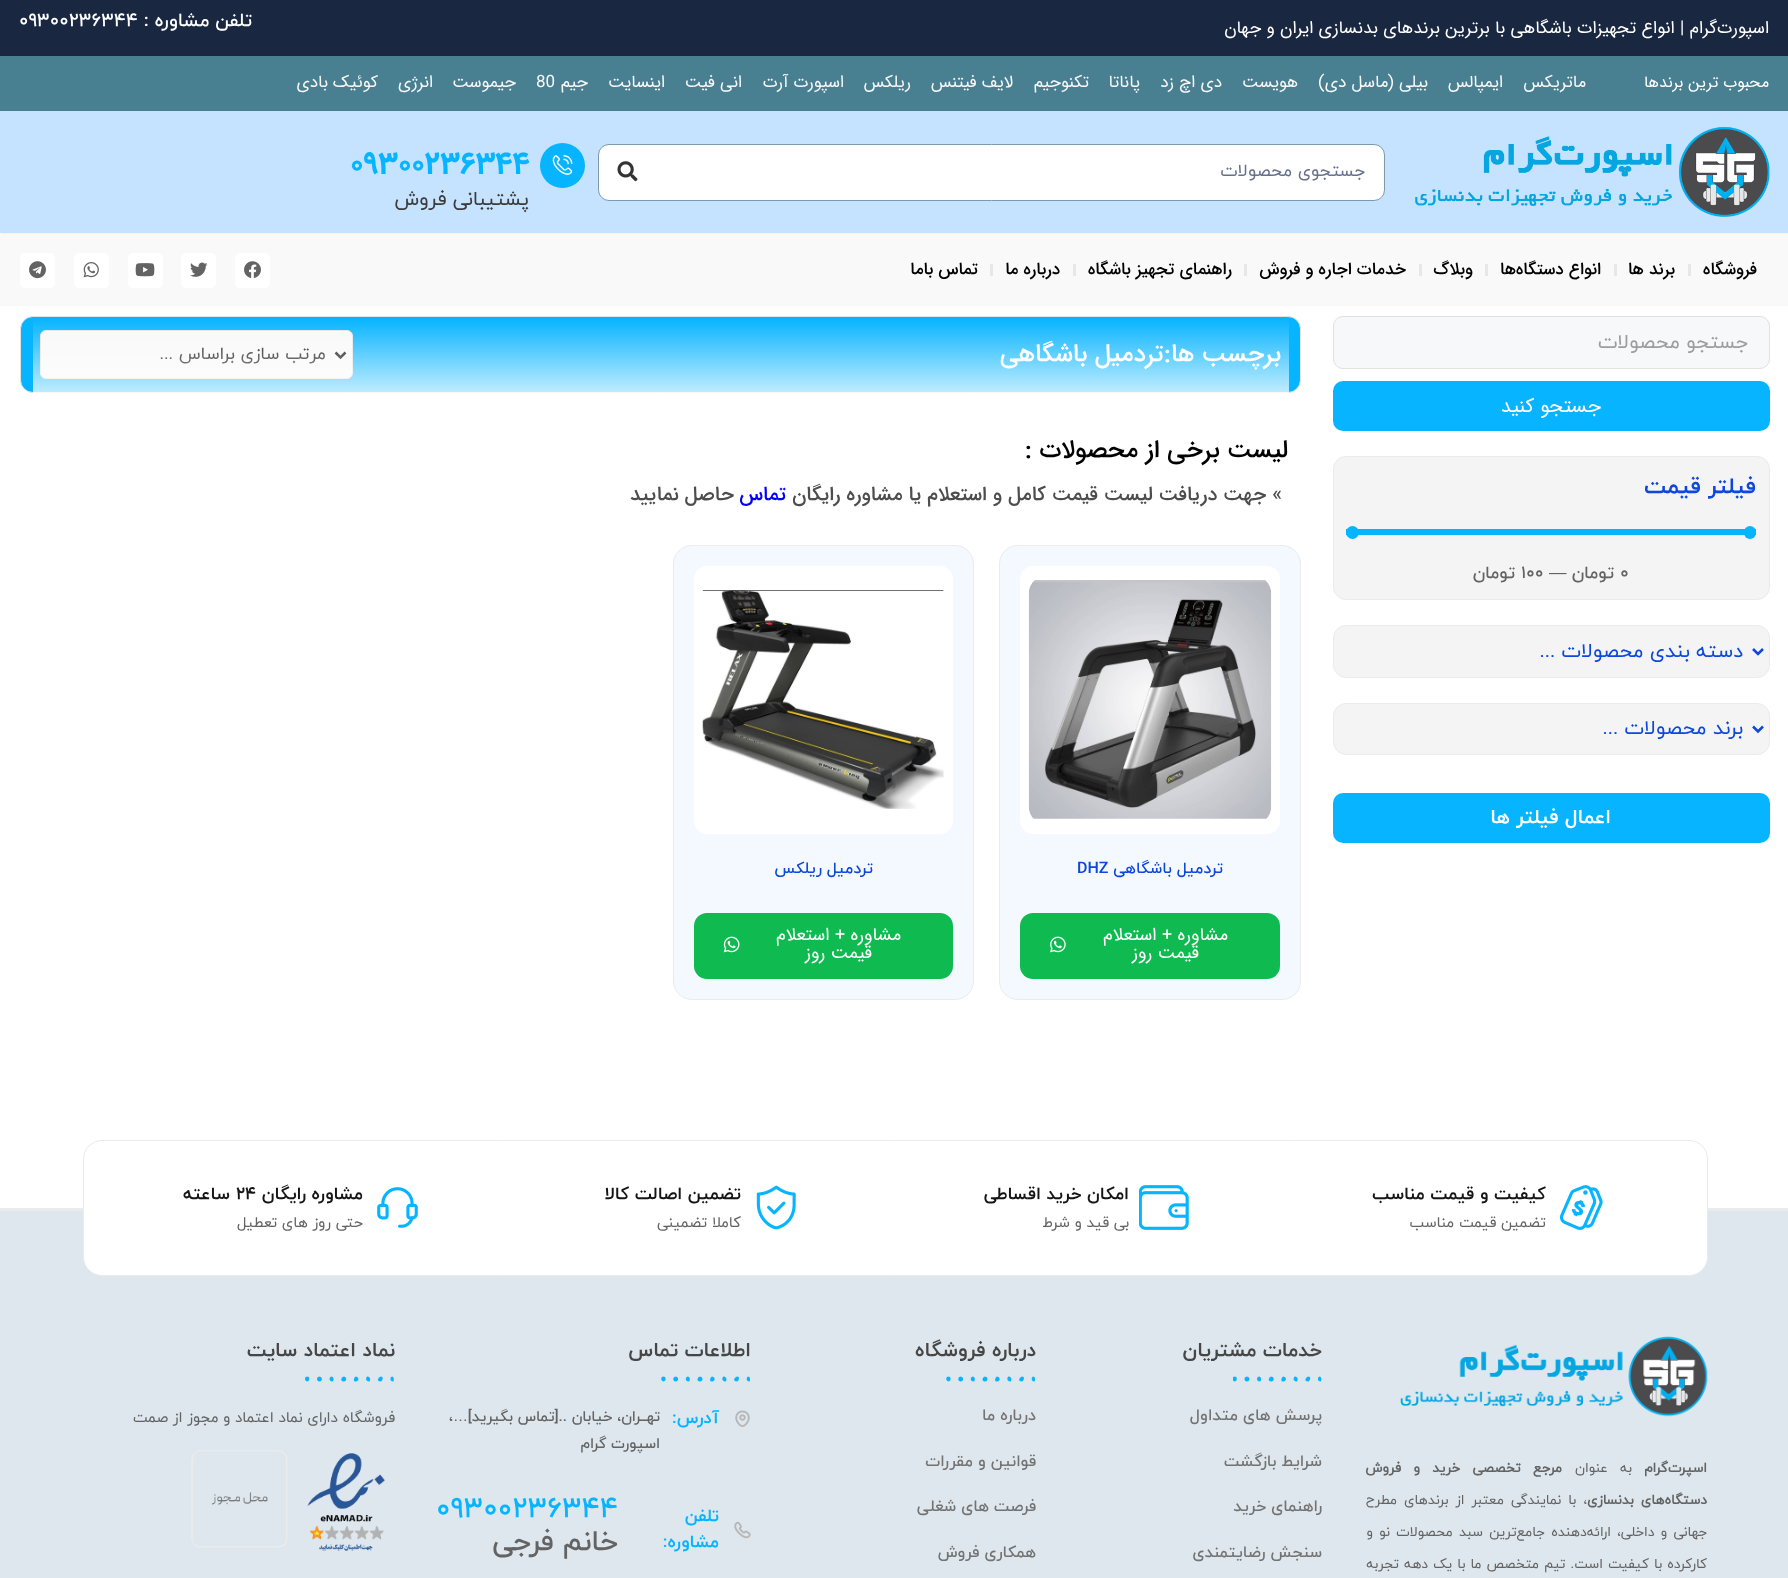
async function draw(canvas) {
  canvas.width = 1788
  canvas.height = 1578
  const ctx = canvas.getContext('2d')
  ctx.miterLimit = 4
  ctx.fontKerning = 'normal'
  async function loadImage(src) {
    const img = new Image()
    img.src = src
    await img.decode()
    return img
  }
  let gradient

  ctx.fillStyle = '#fff'
  ctx.fillRect(0, 0, 1788, 1578)
  ctx.fillStyle = '#192741'
  ctx.fillRect(0, 0, 1788, 56)
  ctx.direction = 'rtl'
  ctx.font = '17.5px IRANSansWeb'
  ctx.fillStyle = '#fff'
  ctx.fillText('اسپورت‌گرام | انواع تجهیزات باشگاهی با برترین برندهای بدنسازی ایران و جهان', 1769, 33)
  ctx.font = '500 18.75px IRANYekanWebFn'
  ctx.fillText('تلفن مشاوره :', 252, 26)
  ctx.direction = 'ltr'
  ctx.fillText('09300236344', 19, 26)
  ctx.fillStyle = '#487f91'
  ctx.fillRect(0, 56, 1788, 55)
  ctx.direction = 'rtl'
  ctx.font = '16px IRANSansWeb'
  ctx.fillStyle = '#fff'
  ctx.fillText('محبوب ترین برندها', 1769, 87)
  ctx.font = '17px IRANSansWeb'
  ctx.fillStyle = '#f8f8f8'
  ctx.fillText('ماتریکس', 1586, 87)
  ctx.fillText('ایمپالس', 1503, 87)
  ctx.fillText('بیلی (ماسل دی)', 1428, 87)
  ctx.fillText('هویست', 1298, 87)
  ctx.fillText('دی اچ زد', 1222, 87)
  ctx.fillText('پاناتا', 1140, 87)
  ctx.fillText('تکنوجیم', 1089, 87)
  ctx.fillText('لایف فیتنس', 1013, 87)
  ctx.fillText('ریلکس', 911, 87)
  ctx.fillText('اسپورت آرت', 844, 87)
  ctx.fillText('انی فیت', 742, 87)
  ctx.fillText('اینسایت', 665, 87)
  ctx.fillText('جیم', 588, 87)
  ctx.direction = 'ltr'
  ctx.fillText('80', 536, 87)
  ctx.direction = 'rtl'
  ctx.fillText('جیموست', 516, 87)
  ctx.fillText('انرژی', 433, 87)
  ctx.fillText('کوئیک بادی', 378, 87)
  ctx.fillStyle = '#c5e2fe'
  ctx.fillRect(0, 111, 1788, 122)
  ctx.drawImage(await loadImage('image0.png'), 1415, 127, 355, 90)
  ctx.fillStyle = '#fff'
  ctx.beginPath()
  ctx.roundRect(598.5, 144.5, 786, 56, 10.5)
  ctx.fill()
  ctx.strokeStyle = '#7d9aad'
  ctx.stroke()
  ctx.font = '17.5px IRANYekanWebFn'
  ctx.fillStyle = '#66718d'
  ctx.fillText('جستجوی محصولات', 1365, 176)
  ctx.drawImage(await loadImage('image1.png'), 617, 161, 21, 21)
  ctx.fillStyle = '#06b4ff'
  ctx.beginPath()
  ctx.arc(562.5, 165.5, 22.5, 0, 2 * Math.PI)
  ctx.fill()
  ctx.drawImage(await loadImage('image2.png'), 552, 155, 21, 20)
  ctx.direction = 'ltr'
  ctx.font = 'bold 31.25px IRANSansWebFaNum'
  ctx.fillText('09300236344', 350, 173)
  ctx.direction = 'rtl'
  ctx.font = '20px IRANYekanWebFn'
  ctx.fillStyle = '#3b3b3b'
  ctx.fillText('پشتیبانی فروش', 529, 205)
  ctx.fillStyle = '#f4f4f4'
  ctx.fillRect(1, 233, 1787, 1)
  ctx.fillStyle = '#f9f9f9'
  ctx.beginPath()
  ctx.moveTo(1, 234)
  ctx.lineTo(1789, 234)
  ctx.lineTo(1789, 306)
  ctx.lineTo(0, 306)
  ctx.lineTo(0, 234)
  ctx.closePath()
  ctx.fill()
  ctx.font = '500 17px IRANSansWeb'
  ctx.fillStyle = '#000'
  ctx.fillText('فروشگاه', 1757, 274)
  ctx.fillStyle = '#e8e7e7'
  ctx.fillRect(1688, 264, 3, 12)
  ctx.fillStyle = '#000'
  ctx.fillText('برند ها', 1675, 274)
  ctx.fillStyle = '#e8e7e7'
  ctx.fillRect(1614, 264, 3, 12)
  ctx.fillStyle = '#000'
  ctx.fillText('انواع دستگاه‌ها', 1601, 274)
  ctx.fillStyle = '#e8e7e7'
  ctx.fillRect(1485, 264, 3, 12)
  ctx.fillStyle = '#000'
  ctx.fillText('وبلاگ', 1473, 274)
  ctx.fillStyle = '#e8e7e7'
  ctx.fillRect(1419, 264, 3, 12)
  ctx.fillStyle = '#000'
  ctx.fillText('خدمات اجاره و فروش', 1406, 274)
  ctx.fillStyle = '#e8e7e7'
  ctx.fillRect(1244, 264, 3, 12)
  ctx.fillStyle = '#000'
  ctx.fillText('راهنمای تجهیز باشگاه', 1232, 274)
  ctx.fillStyle = '#e8e7e7'
  ctx.fillRect(1073, 264, 3, 12)
  ctx.fillStyle = '#000'
  ctx.fillText('درباره ما', 1060, 274)
  ctx.fillStyle = '#e8e7e7'
  ctx.fillRect(990, 264, 3, 12)
  ctx.fillStyle = '#000'
  ctx.fillText('تماس باما', 978, 274)
  ctx.fillStyle = '#fff'
  ctx.beginPath()
  ctx.roundRect(235, 253, 35, 35, 5)
  ctx.fill()
  ctx.drawImage(await loadImage('image3.png'), 244, 261, 17, 17)
  ctx.beginPath()
  ctx.roundRect(181, 253, 35, 35, 5)
  ctx.fill()
  ctx.drawImage(await loadImage('image4.png'), 190, 262, 18, 15)
  ctx.beginPath()
  ctx.roundRect(128, 253, 35, 35, 5)
  ctx.fill()
  ctx.drawImage(await loadImage('image5.png'), 135, 263, 20, 14)
  ctx.beginPath()
  ctx.roundRect(74, 253, 35, 35, 5)
  ctx.fill()
  ctx.drawImage(await loadImage('image6.png'), 83, 262, 16, 16)
  ctx.beginPath()
  ctx.roundRect(20, 253, 35, 35, 5)
  ctx.fill()
  ctx.drawImage(await loadImage('image7.png'), 29, 261, 17, 18)
  ctx.fillStyle = '#f7f8fa'
  ctx.beginPath()
  ctx.roundRect(1333.5, 316.5, 436, 52, 9.5)
  ctx.fill()
  ctx.strokeStyle = '#e1e1e1'
  ctx.stroke()
  ctx.font = '20px IRANYekanWebFn'
  ctx.fillStyle = '#9d9d9d'
  ctx.fillText('جستجو محصولات', 1748, 348)
  ctx.fillStyle = '#06b4ff'
  ctx.beginPath()
  ctx.roundRect(1333, 381, 437, 50, 10)
  ctx.fill()
  ctx.font = '20px IRANSansWeb'
  ctx.fillStyle = '#fff'
  ctx.fillText('جستجو کنید', 1601, 412)
  ctx.fillStyle = '#f4f4f4'
  ctx.beginPath()
  ctx.roundRect(1333.5, 456.5, 436, 143, 12.5)
  ctx.fill()
  ctx.strokeStyle = '#ebebeb'
  ctx.stroke()
  ctx.font = 'bold 22.5px IRANYekanWebFn'
  ctx.fillStyle = '#0e47db'
  ctx.fillText('فیلتر قیمت', 1756, 493)
  ctx.fillStyle = '#06b4ff'
  ctx.fillRect(1346, 529, 410, 6)
  ctx.beginPath()
  ctx.roundRect(1744, 526, 12, 13, 6)
  ctx.fill()
  ctx.beginPath()
  ctx.arc(1352.5, 532.5, 6.5, 0, 2 * Math.PI)
  ctx.fill()
  ctx.direction = 'ltr'
  ctx.font = '500 17.5px IRANYekanWebFn'
  ctx.fillStyle = '#636363'
  ctx.fillText('0', 1620, 578)
  ctx.direction = 'rtl'
  ctx.fillText('تومان', 1614, 578)
  ctx.direction = 'ltr'
  ctx.font = '17.5px Liberation Sans'
  ctx.fillText('—', 1549, 578)
  ctx.font = '500 17.5px IRANYekanWebFn'
  ctx.fillText('100', 1521, 578)
  ctx.direction = 'rtl'
  ctx.fillText('تومان', 1515, 578)
  ctx.fillStyle = '#f4f4f4'
  ctx.beginPath()
  ctx.roundRect(1333.5, 625.5, 436, 52, 12.5)
  ctx.fill()
  ctx.stroke()
  ctx.beginPath()
  ctx.moveTo(1753, 649)
  ctx.lineTo(1758, 654)
  ctx.lineTo(1763, 649)
  ctx.strokeStyle = '#0e47db'
  ctx.lineWidth = 2.5
  ctx.stroke()
  ctx.font = '20px IRANYekanWebFn'
  ctx.fillStyle = '#0e47db'
  ctx.fillText('دسته بندی محصولات ...', 1743, 657)
  ctx.fillStyle = '#f4f4f4'
  ctx.beginPath()
  ctx.roundRect(1333.5, 703.5, 436, 51, 12.5)
  ctx.fill()
  ctx.strokeStyle = '#ebebeb'
  ctx.lineWidth = 1
  ctx.stroke()
  ctx.beginPath()
  ctx.moveTo(1753, 726.5)
  ctx.lineTo(1758, 731.5)
  ctx.lineTo(1763, 726.5)
  ctx.strokeStyle = '#0e47db'
  ctx.lineWidth = 2.5
  ctx.stroke()
  ctx.fillStyle = '#0e47db'
  ctx.fillText('برند محصولات ...', 1743, 734)
  ctx.fillStyle = '#06b4ff'
  ctx.beginPath()
  ctx.roundRect(1333, 793, 437, 50, 10)
  ctx.fill()
  ctx.font = 'bold 20px IRANYekanWebFn'
  ctx.fillStyle = '#fff'
  ctx.fillText('اعمال فیلتر ها', 1611, 823)
  ctx.fillStyle = '#06b4ff'
  ctx.beginPath()
  ctx.roundRect(20.5, 316.5, 1280, 76, 12.5)
  ctx.fill()
  ctx.strokeStyle = '#e3e3e3'
  ctx.lineWidth = 1
  ctx.stroke()
  ctx.font = '500 25px IRANSansWebFaNum'
  ctx.fillStyle = '#fff'
  ctx.fillText('برچسب ها:تردمیل باشگاهی', 1281, 361)
  ctx.fillStyle = '#f8f8f8'
  ctx.beginPath()
  ctx.roundRect(40.5, 330.5, 312, 48, 5.5)
  ctx.fill()
  ctx.stroke()
  ctx.beginPath()
  ctx.moveTo(335.5, 352.5)
  ctx.lineTo(340.5, 357.5)
  ctx.lineTo(345.5, 352.5)
  ctx.strokeStyle = '#000'
  ctx.lineWidth = 2.5
  ctx.stroke()
  ctx.font = '17.5px IRANYekanWebFn'
  ctx.fillStyle = '#000'
  ctx.fillText('مرتب سازی براساس ...', 326, 359)
  gradient = ctx.createLinearGradient(661, 418, 661, 318)
  gradient.addColorStop(0, '#fff')
  gradient.addColorStop(1, '#ffffff00')
  ctx.fillStyle = gradient
  ctx.fillRect(33, 320, 1256, 73)
  ctx.font = '500 25px IRANSansWebFaNum'
  ctx.fillStyle = '#000'
  ctx.fillText('لیست برخی از محصولات :', 1288, 457)
  ctx.font = '500 20px IRANSansWebFaNum'
  ctx.fillStyle = '#4d4d4d'
  ctx.fillText('» جهت دریافت لیست قیمت کامل و استعلام یا مشاوره رایگان', 1282, 500)
  ctx.fillStyle = '#00f'
  ctx.fillText('تماس', 786, 500)
  ctx.fillStyle = '#4d4d4d'
  ctx.fillText('حاصل نمایید', 734, 500)
  ctx.fillStyle = '#f4f9ff'
  ctx.beginPath()
  ctx.roundRect(999.5, 545.5, 301, 454, 18.5)
  ctx.fill()
  ctx.strokeStyle = '#ebebeb'
  ctx.lineWidth = 1
  ctx.stroke()
  ctx.fillStyle = '#fff'
  ctx.beginPath()
  ctx.roundRect(1020, 566, 260, 268, 13)
  ctx.fill()
  ctx.drawImage(await loadImage('image8.png'), 1028, 580, 244, 239)
  ctx.font = '500 16px IRANYekanWebFn'
  ctx.fillStyle = '#0e47db'
  ctx.fillText('تردمیل باشگاهی', 1223, 873)
  ctx.direction = 'ltr'
  ctx.fillText('DHZ', 1077, 873)
  ctx.fillStyle = '#0fbb50'
  ctx.beginPath()
  ctx.roundRect(1020, 913, 260, 66, 13)
  ctx.fill()
  ctx.direction = 'rtl'
  ctx.font = '18px IRANSansWeb'
  ctx.fillStyle = '#fff'
  ctx.fillText('مشاوره + استعلام', 1228, 940)
  ctx.fillText('قیمت روز', 1199, 958)
  ctx.drawImage(await loadImage('image9.png'), 1050, 936, 16, 17)
  ctx.fillStyle = '#f4f9ff'
  ctx.beginPath()
  ctx.roundRect(673.5, 545.5, 300, 454, 18.5)
  ctx.fill()
  ctx.stroke()
  ctx.fillStyle = '#fff'
  ctx.beginPath()
  ctx.roundRect(694, 566, 259, 268, 13)
  ctx.fill()
  ctx.drawImage(await loadImage('image10.png'), 702, 590, 242, 219)
  ctx.font = '500 16px IRANYekanWebFn'
  ctx.fillStyle = '#0e47db'
  ctx.fillText('تردمیل ریلکس', 873, 873)
  ctx.fillStyle = '#0fbb50'
  ctx.beginPath()
  ctx.roundRect(694, 913, 259, 66, 13)
  ctx.fill()
  ctx.font = '18px IRANSansWeb'
  ctx.fillStyle = '#fff'
  ctx.fillText('مشاوره + استعلام', 901, 940)
  ctx.fillText('قیمت روز', 872, 958)
  ctx.drawImage(await loadImage('image11.png'), 723, 936, 17, 17)
  ctx.fillStyle = '#dee7ed'
  ctx.fillRect(0, 1211, 1788, 367)
  ctx.fillStyle = '#ebebeb'
  ctx.fillRect(0, 1208, 1788, 3)
  ctx.fillStyle = '#fff'
  ctx.beginPath()
  ctx.roundRect(83.5, 1140.5, 1624, 135, 18.5)
  ctx.fill()
  ctx.stroke()
  ctx.drawImage(await loadImage('image12.png'), 1559, 1185, 44, 45)
  ctx.font = 'bold 17.5px IRANYekanWebFn'
  ctx.fillStyle = '#151515'
  ctx.fillText('کیفیت و قیمت مناسب', 1546, 1199)
  ctx.font = '15px IRANYekanWebFn'
  ctx.fillStyle = '#636363'
  ctx.fillText('تضمین قیمت مناسب', 1546, 1227)
  ctx.drawImage(await loadImage('image13.png'), 1139, 1185, 50, 45)
  ctx.font = 'bold 17.5px IRANYekanWebFn'
  ctx.fillStyle = '#151515'
  ctx.fillText('امکان خرید اقساطی', 1129, 1199)
  ctx.font = '15px IRANYekanWebFn'
  ctx.fillStyle = '#636363'
  ctx.fillText('بی قید و شرط', 1129, 1227)
  ctx.drawImage(await loadImage('image14.png'), 756, 1185, 40, 45)
  ctx.font = 'bold 17.5px IRANYekanWebFn'
  ctx.fillStyle = '#151515'
  ctx.fillText('تضمین اصالت کالا', 741, 1199)
  ctx.font = '15px IRANYekanWebFn'
  ctx.fillStyle = '#636363'
  ctx.fillText('کاملا تضمینی', 741, 1227)
  ctx.drawImage(await loadImage('image15.png'), 377, 1187, 41, 41)
  ctx.font = 'bold 17.5px IRANYekanWebFn'
  ctx.fillStyle = '#151515'
  ctx.fillText('مشاوره رایگان', 363, 1199)
  ctx.direction = 'ltr'
  ctx.fillText('24', 236, 1199)
  ctx.direction = 'rtl'
  ctx.fillText('ساعته', 230, 1199)
  ctx.font = '15px IRANYekanWebFn'
  ctx.fillStyle = '#636363'
  ctx.fillText('حتی روز های تعطیل', 363, 1227)
  ctx.drawImage(await loadImage('image16.png'), 1400, 1336, 308, 81)
  ctx.font = 'bold 13.75px "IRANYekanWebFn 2"'
  ctx.fillText('اسپرت‌گرام', 1707, 1472)
  ctx.wordSpacing = '8px'
  ctx.font = '13.75px IRANYekanWebFn'
  ctx.fillText('به عنوان', 1632, 1472)
  ctx.font = 'bold 13.75px "IRANYekanWebFn 2"'
  ctx.fillText('مرجع تخصصی خرید و فروش', 1562, 1472)
  ctx.wordSpacing = '2.75px'
  ctx.fillText('دستگاه‌های بدنسازی', 1707, 1504)
  ctx.font = '13.75px IRANYekanWebFn'
  ctx.fillText('، با نمایندگی معتبر از برندهای مطرح', 1587, 1504)
  ctx.wordSpacing = '2px'
  ctx.fillText('جهانی و داخلی، ارائه‌دهنده جامع‌ترین سبد محصولات نو و', 1707, 1536)
  ctx.wordSpacing = '0.75px'
  ctx.fillText('کارکرده با کیفیت است. تیم متخصص ما با یک دهه تجربه', 1707, 1568)
  ctx.wordSpacing = '0px'
  ctx.font = 'bold 20px IRANYekanWebFn'
  ctx.fillStyle = '#464646'
  ctx.fillText('خدمات مشتریان', 1322, 1356)
  ctx.drawImage(await loadImage('image17.png'), 1233, 1376, 89, 6)
  ctx.font = '500 16.25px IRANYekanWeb'
  ctx.fillStyle = '#737373'
  ctx.fillText('پرسش های متداول', 1322, 1420)
  ctx.fillText('شرایط بازگشت', 1322, 1466)
  ctx.fillText('راهنمای خرید', 1322, 1511)
  ctx.fillText('سنجش رضایتمندی', 1322, 1557)
  ctx.font = 'bold 20px IRANYekanWebFn'
  ctx.fillStyle = '#464646'
  ctx.fillText('درباره فروشگاه', 1036, 1356)
  ctx.drawImage(await loadImage('image18.png'), 946, 1376, 89, 6)
  ctx.font = '500 16.25px IRANYekanWeb'
  ctx.fillStyle = '#737373'
  ctx.fillText('درباره ما', 1036, 1420)
  ctx.fillText('قوانین و مقررات', 1036, 1466)
  ctx.fillText('فرصت های شغلی', 1036, 1511)
  ctx.fillText('همکاری فروش', 1036, 1557)
  ctx.font = 'bold 20px IRANYekanWebFn'
  ctx.fillStyle = '#464646'
  ctx.fillText('اطلاعات تماس', 751, 1356)
  ctx.drawImage(await loadImage('image18.png'), 661, 1376, 89, 6)
  ctx.drawImage(await loadImage('image19.png'), 735, 1410, 15, 17)
  ctx.font = 'bold 17.5px IRANYekanWebFn'
  ctx.fillStyle = '#06b4ff'
  ctx.fillText('آدرس:', 719, 1423)
  ctx.font = '500 15px IRANYekanWebFn'
  ctx.fillStyle = '#636363'
  ctx.fillText('تهــران، خیابان ..[تماس بگیرید]', 660, 1421)
  ctx.font = '15px Liberation Sans'
  ctx.fillText('…', 468, 1421)
  ctx.font = '500 15px IRANYekanWebFn'
  ctx.fillText('،', 453, 1421)
  ctx.fillText('اسپورت گرام', 660, 1448)
  ctx.drawImage(await loadImage('image20.png'), 734, 1521, 17, 18)
  ctx.font = 'bold 17.5px IRANYekanWebFn'
  ctx.fillStyle = '#06b4ff'
  ctx.fillText('تلفن', 719, 1521)
  ctx.fillText('مشاوره:', 719, 1547)
  ctx.direction = 'ltr'
  ctx.font = '500 28.75px IRANYekanWebFn'
  ctx.fillText('09300236344', 436, 1517)
  ctx.direction = 'rtl'
  ctx.fillStyle = '#636363'
  ctx.fillText('خانم فرجی', 618, 1550)
  ctx.font = 'bold 20px IRANYekanWebFn'
  ctx.fillStyle = '#464646'
  ctx.fillText('نماد اعتماد سایت', 395, 1356)
  ctx.drawImage(await loadImage('image21.png'), 305, 1376, 89, 6)
  ctx.font = '15px IRANYekanWebFn'
  ctx.fillStyle = '#636363'
  ctx.fillText('فروشگاه دارای نماد اعتماد و مجوز از صمت', 395, 1422)
  ctx.drawImage(await loadImage('image22.png'), 307, 1453, 78, 98)
  ctx.drawImage(await loadImage('image23.png'), 191, 1450, 97, 98)
}

draw(document.querySelector('canvas'))
